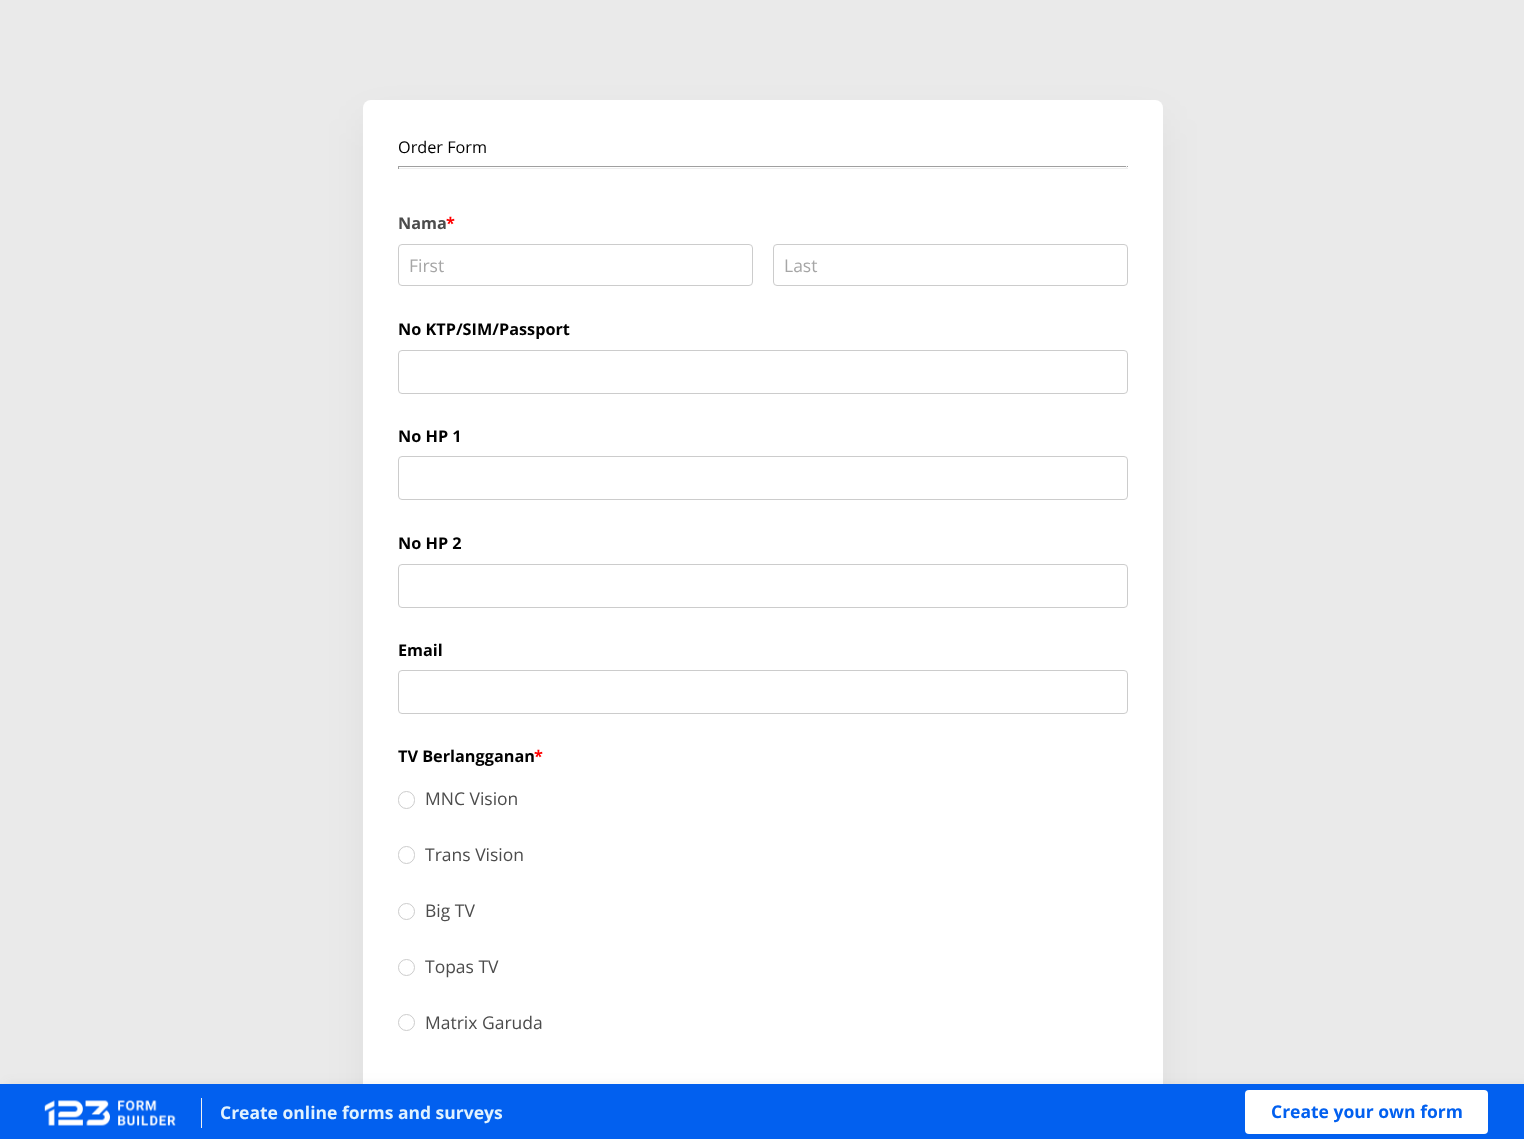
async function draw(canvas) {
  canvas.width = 1524
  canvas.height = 1139
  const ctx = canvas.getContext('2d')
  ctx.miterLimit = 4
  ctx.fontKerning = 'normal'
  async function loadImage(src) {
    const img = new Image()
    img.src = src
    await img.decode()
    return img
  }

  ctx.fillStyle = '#eaeaea'
  ctx.fillRect(0, 0, 1524, 1139)
  ctx.fillStyle = '#0000000d'
  ctx.filter = 'blur(20px)'
  ctx.beginPath()
  ctx.roundRect(363, 119, 800, 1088, 8)
  ctx.fill()
  ctx.filter = 'none'
  ctx.fillStyle = '#fff'
  ctx.beginPath()
  ctx.roundRect(363, 100, 800, 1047, 8)
  ctx.fill()
  ctx.font = '16.25px Open Sans'
  ctx.fillStyle = '#000'
  ctx.fillText('Order Form', 398, 153)
  ctx.fillStyle = '#9f9f9f'
  ctx.fillRect(398, 166, 730, 1)
  ctx.fillStyle = '#eee'
  ctx.fillRect(1126, 166, 1, 3)
  ctx.fillRect(398, 168, 730, 1)
  ctx.fillStyle = '#9f9f9f'
  ctx.fillRect(398, 166, 1, 3)
  ctx.font = 'bold 16.25px Open Sans'
  ctx.fillStyle = '#4c4c4c'
  ctx.fillText('Nama', 398, 229)
  ctx.fillStyle = '#f00'
  ctx.fillText('*', 446, 229)
  ctx.beginPath()
  ctx.roundRect(398.5, 244.5, 354, 41, 3.5)
  ctx.strokeStyle = '#ccc'
  ctx.stroke()
  ctx.font = '17.5px Open Sans'
  ctx.fillStyle = '#a6a6a6'
  ctx.fillText('First', 409, 272)
  ctx.beginPath()
  ctx.roundRect(773.5, 244.5, 354, 41, 3.5)
  ctx.stroke()
  ctx.fillText('Last', 784, 272)
  ctx.font = 'bold 16.25px Open Sans'
  ctx.fillStyle = '#000'
  ctx.fillText('No KTP/SIM/Passport', 398, 335)
  ctx.beginPath()
  ctx.roundRect(398.5, 350.5, 729, 43, 3.5)
  ctx.stroke()
  ctx.fillText('No HP 1', 398, 442)
  ctx.beginPath()
  ctx.roundRect(398.5, 456.5, 729, 43, 3.5)
  ctx.stroke()
  ctx.fillText('No HP 2', 398, 549)
  ctx.beginPath()
  ctx.roundRect(398.5, 564.5, 729, 43, 3.5)
  ctx.stroke()
  ctx.fillText('Email', 398, 656)
  ctx.beginPath()
  ctx.roundRect(398.5, 670.5, 729, 43, 3.5)
  ctx.stroke()
  ctx.save()
  ctx.beginPath()
  ctx.rect(398, 735, 730, 33)
  ctx.clip()
  ctx.fillText('TV Berlangganan', 398, 762)
  ctx.restore()
  ctx.fillStyle = '#f00'
  ctx.fillText('*', 534, 762)
  ctx.beginPath()
  ctx.roundRect(398.5, 791.5, 16, 17, 8)
  ctx.stroke()
  ctx.font = '17.5px Open Sans'
  ctx.fillStyle = '#4c4c4c'
  ctx.fillText('MNC Vision', 425, 805)
  ctx.beginPath()
  ctx.roundRect(398.5, 846.5, 16, 17, 8)
  ctx.stroke()
  ctx.fillText('Trans Vision', 425, 861)
  ctx.beginPath()
  ctx.arc(406.5, 911.5, 8, 0, 2 * Math.PI)
  ctx.stroke()
  ctx.fillText('Big TV', 425, 917)
  ctx.beginPath()
  ctx.arc(406.5, 967.5, 8, 0, 2 * Math.PI)
  ctx.stroke()
  ctx.fillText('Topas TV', 425, 973)
  ctx.beginPath()
  ctx.arc(406.5, 1022.5, 8, 0, 2 * Math.PI)
  ctx.stroke()
  ctx.fillText('Matrix Garuda', 425, 1029)
  ctx.fillStyle = '#4c4c4c14'
  ctx.filter = 'blur(6px)'
  ctx.beginPath()
  ctx.rect(6, 1084, 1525, 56)
  ctx.fill()
  ctx.filter = 'none'
  ctx.fillStyle = '#0260ef'
  ctx.fillRect(0, 1084, 1524, 55)
  ctx.drawImage(await loadImage('image0.png'), 44, 1100, 132, 26)
  ctx.fillStyle = '#f0f0f0'
  ctx.fillRect(201, 1098, 1, 30)
  ctx.font = 'bold 17.5px Open Sans'
  ctx.fillStyle = '#e1f2fe'
  ctx.fillText('Create online forms and surveys', 220, 1119)
  ctx.fillStyle = '#fff'
  ctx.beginPath()
  ctx.roundRect(1245, 1090, 243, 44, 4)
  ctx.fill()
  ctx.fillStyle = '#0260ef'
  ctx.fillText('Create your own form', 1271, 1118)
}

draw(document.querySelector('canvas'))
